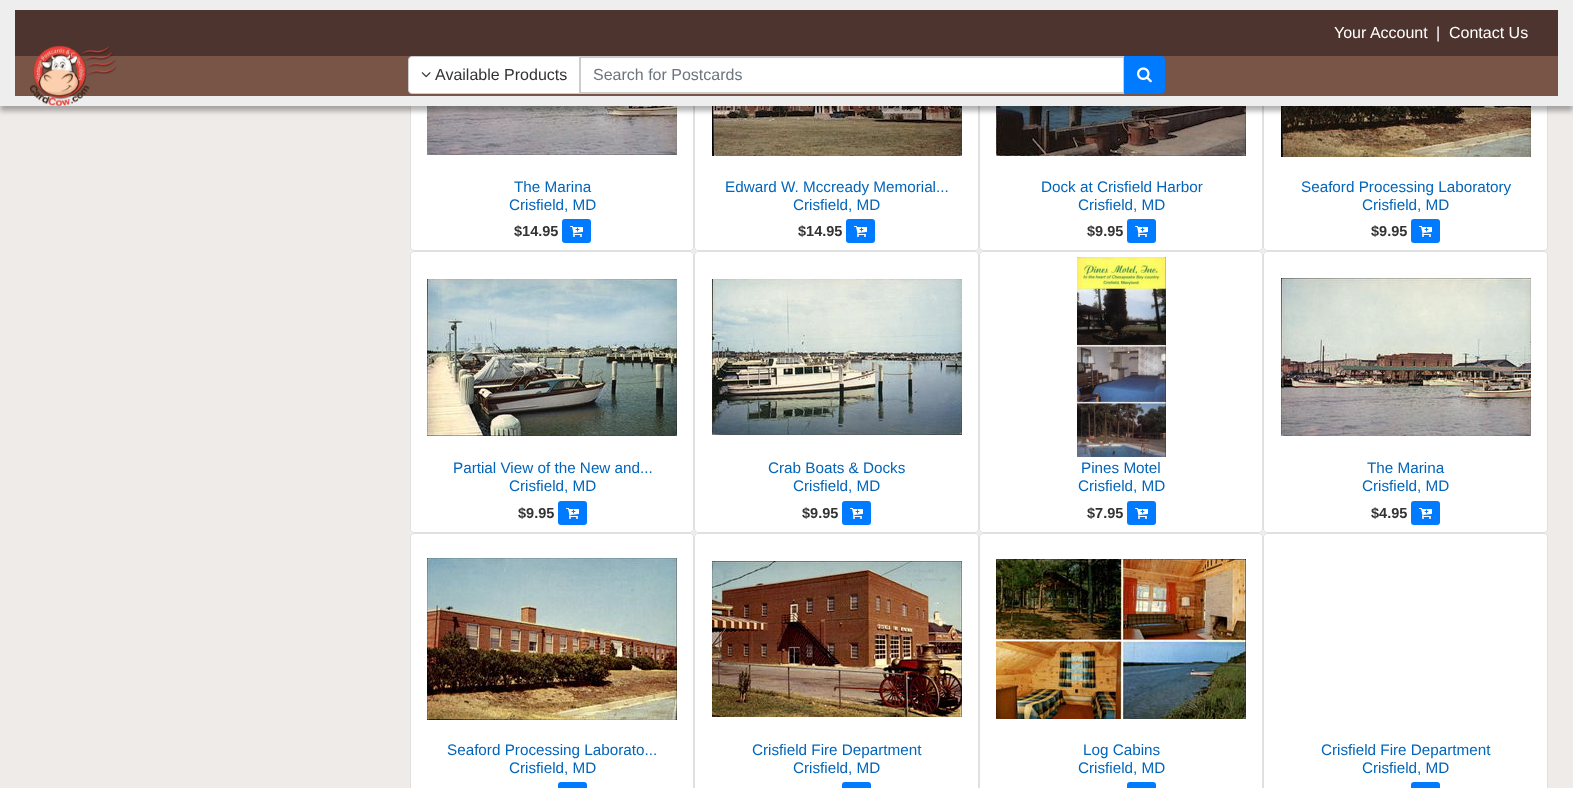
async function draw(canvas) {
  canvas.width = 1573
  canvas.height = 788
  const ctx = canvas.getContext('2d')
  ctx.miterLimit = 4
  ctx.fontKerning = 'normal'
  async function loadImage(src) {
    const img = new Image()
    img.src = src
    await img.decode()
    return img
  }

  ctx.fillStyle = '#efebe9'
  ctx.fillRect(0, 0, 1573, 788)
  ctx.fillStyle = '#fff'
  ctx.beginPath()
  ctx.roundRect(410, -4, 284, 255, 4)
  ctx.fill()
  ctx.beginPath()
  ctx.roundRect(410.5, -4.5, 283, 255, 3.5)
  ctx.strokeStyle = '#0000001f'
  ctx.stroke()
  ctx.drawImage(await loadImage('image3.png'), 427, 106, 250, 49)
  ctx.beginPath()
  ctx.roundRect(694, -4, 285, 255, 4)
  ctx.fill()
  ctx.beginPath()
  ctx.roundRect(694.5, -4.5, 284, 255, 3.5)
  ctx.stroke()
  ctx.drawImage(await loadImage('image5.png'), 712, 106, 250, 50)
  ctx.beginPath()
  ctx.roundRect(979, -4, 284, 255, 4)
  ctx.fill()
  ctx.beginPath()
  ctx.roundRect(979.5, -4.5, 283, 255, 3.5)
  ctx.stroke()
  ctx.drawImage(await loadImage('image6.png'), 996, 106, 250, 50)
  ctx.beginPath()
  ctx.roundRect(1263, -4, 285, 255, 4)
  ctx.fill()
  ctx.beginPath()
  ctx.roundRect(1263.5, -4.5, 284, 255, 3.5)
  ctx.stroke()
  ctx.drawImage(await loadImage('image7.png'), 1281, 106, 250, 51)
  ctx.fillStyle = '#0000004d'
  ctx.filter = 'blur(2.5px)'
  ctx.beginPath()
  ctx.rect(0, 5, 1573, 106)
  ctx.fill()
  ctx.filter = 'none'
  ctx.fillStyle = '#eee'
  ctx.fillRect(0, 0, 1573, 106)
  ctx.fillStyle = '#4e342e'
  ctx.fillRect(15, 10, 1543, 46)
  ctx.font = '16px Liberation Sans'
  ctx.fillStyle = '#fff'
  ctx.fillText('Your Account', 1334, 38)
  ctx.fillText('|', 1436, 38)
  ctx.fillText('Contact Us', 1449, 38)
  ctx.fillStyle = '#795548'
  ctx.fillRect(15, 56, 1543, 40)
  ctx.drawImage(await loadImage('image0.png'), 30, 45, 87, 61)
  ctx.fillStyle = '#fff'
  ctx.beginPath()
  ctx.rect(580, 57, 544, 36)
  ctx.fill()
  ctx.strokeStyle = '#ccc'
  ctx.lineWidth = 2
  ctx.stroke()
  ctx.beginPath()
  ctx.roundRect(408.5, 56.5, 171, 37, [3.5, 0, 0, 3.5])
  ctx.fill()
  ctx.lineWidth = 1
  ctx.stroke()
  ctx.drawImage(await loadImage('image1.png'), 421, 72, 10, 6)
  ctx.fillStyle = '#333'
  ctx.fillText('Available Products', 435, 80)
  ctx.fillStyle = '#6c757d'
  ctx.fillText('Search for Postcards', 593, 80)
  ctx.fillStyle = '#007bff'
  ctx.beginPath()
  ctx.roundRect(1124.5, 56.5, 40, 37, [0, 3.5, 3.5, 0])
  ctx.fill()
  ctx.strokeStyle = '#007bff'
  ctx.stroke()
  ctx.drawImage(await loadImage('image2.png'), 1137, 67, 15, 16)
  ctx.font = '15.25px Liberation Sans'
  ctx.fillStyle = '#0265ba'
  ctx.fillText('The Marina', 514, 192)
  ctx.fillText('Crisfield, MD', 509, 210)
  ctx.font = 'bold 14.5px Liberation Sans'
  ctx.fillStyle = '#333'
  ctx.fillText('$14.95', 514, 236)
  ctx.fillStyle = '#007bff'
  ctx.beginPath()
  ctx.roundRect(562, 219, 29, 24, 3)
  ctx.fill()
  ctx.drawImage(await loadImage('image4.png'), 570, 226, 13, 11)
  ctx.font = '15.25px Liberation Sans'
  ctx.fillStyle = '#0265ba'
  ctx.fillText('Edward W. Mccready Memorial...', 725, 192)
  ctx.fillText('Crisfield, MD', 793, 210)
  ctx.font = 'bold 14.5px Liberation Sans'
  ctx.fillStyle = '#333'
  ctx.fillText('$14.95', 798, 236)
  ctx.fillStyle = '#007bff'
  ctx.beginPath()
  ctx.roundRect(846, 219, 29, 24, 3)
  ctx.fill()
  ctx.drawImage(await loadImage('image4.png'), 854, 226, 13, 11)
  ctx.font = '15.25px Liberation Sans'
  ctx.fillStyle = '#0265ba'
  ctx.fillText('Dock at Crisfield Harbor', 1041, 192)
  ctx.fillText('Crisfield, MD', 1078, 210)
  ctx.font = 'bold 14.5px Liberation Sans'
  ctx.fillStyle = '#333'
  ctx.fillText('$9.95', 1087, 236)
  ctx.fillStyle = '#007bff'
  ctx.beginPath()
  ctx.roundRect(1127, 219, 29, 24, 3)
  ctx.fill()
  ctx.drawImage(await loadImage('image4.png'), 1135, 226, 13, 11)
  ctx.font = '15.25px Liberation Sans'
  ctx.fillStyle = '#0265ba'
  ctx.fillText('Seaford Processing Laboratory', 1301, 192)
  ctx.fillText('Crisfield, MD', 1362, 210)
  ctx.font = 'bold 14.5px Liberation Sans'
  ctx.fillStyle = '#333'
  ctx.fillText('$9.95', 1371, 236)
  ctx.fillStyle = '#007bff'
  ctx.beginPath()
  ctx.roundRect(1411, 219, 29, 24, 3)
  ctx.fill()
  ctx.drawImage(await loadImage('image4.png'), 1419, 226, 13, 11)
  ctx.fillStyle = '#fff'
  ctx.beginPath()
  ctx.roundRect(410, 251, 284, 282, 4)
  ctx.fill()
  ctx.beginPath()
  ctx.roundRect(410.5, 251.5, 283, 281, 3.5)
  ctx.strokeStyle = '#0000001f'
  ctx.stroke()
  ctx.drawImage(await loadImage('image8.png'), 427, 279, 250, 157)
  ctx.font = '15.25px Liberation Sans'
  ctx.fillStyle = '#0265ba'
  ctx.fillText('Partial View of the New and...', 453, 473)
  ctx.fillText('Crisfield, MD', 509, 491)
  ctx.font = 'bold 14.5px Liberation Sans'
  ctx.fillStyle = '#333'
  ctx.fillText('$9.95', 518, 518)
  ctx.fillStyle = '#007bff'
  ctx.beginPath()
  ctx.roundRect(558, 501, 29, 24, 3)
  ctx.fill()
  ctx.drawImage(await loadImage('image4.png'), 566, 508, 13, 11)
  ctx.fillStyle = '#fff'
  ctx.beginPath()
  ctx.roundRect(694, 251, 285, 282, 4)
  ctx.fill()
  ctx.beginPath()
  ctx.roundRect(694.5, 251.5, 284, 281, 3.5)
  ctx.stroke()
  ctx.drawImage(await loadImage('image9.png'), 712, 279, 250, 156)
  ctx.font = '15.25px Liberation Sans'
  ctx.fillStyle = '#0265ba'
  ctx.fillText('Crab Boats & Docks', 768, 473)
  ctx.fillText('Crisfield, MD', 793, 491)
  ctx.font = 'bold 14.5px Liberation Sans'
  ctx.fillStyle = '#333'
  ctx.fillText('$9.95', 802, 518)
  ctx.fillStyle = '#007bff'
  ctx.beginPath()
  ctx.roundRect(842, 501, 29, 24, 3)
  ctx.fill()
  ctx.drawImage(await loadImage('image4.png'), 850, 508, 13, 11)
  ctx.fillStyle = '#fff'
  ctx.beginPath()
  ctx.roundRect(979, 251, 284, 282, 4)
  ctx.fill()
  ctx.beginPath()
  ctx.roundRect(979.5, 251.5, 283, 281, 3.5)
  ctx.stroke()
  ctx.drawImage(await loadImage('image10.png'), 1077, 257, 89, 200)
  ctx.font = '15.25px Liberation Sans'
  ctx.fillStyle = '#0265ba'
  ctx.fillText('Pines Motel', 1081, 473)
  ctx.fillText('Crisfield, MD', 1078, 491)
  ctx.font = 'bold 14.5px Liberation Sans'
  ctx.fillStyle = '#333'
  ctx.fillText('$7.95', 1087, 518)
  ctx.fillStyle = '#007bff'
  ctx.beginPath()
  ctx.roundRect(1127, 501, 29, 24, 3)
  ctx.fill()
  ctx.drawImage(await loadImage('image4.png'), 1135, 508, 13, 11)
  ctx.fillStyle = '#fff'
  ctx.beginPath()
  ctx.roundRect(1263, 251, 285, 282, 4)
  ctx.fill()
  ctx.beginPath()
  ctx.roundRect(1263.5, 251.5, 284, 281, 3.5)
  ctx.stroke()
  ctx.drawImage(await loadImage('image11.png'), 1281, 278, 250, 158)
  ctx.font = '15.25px Liberation Sans'
  ctx.fillStyle = '#0265ba'
  ctx.fillText('The Marina', 1367, 473)
  ctx.fillText('Crisfield, MD', 1362, 491)
  ctx.font = 'bold 14.5px Liberation Sans'
  ctx.fillStyle = '#333'
  ctx.fillText('$4.95', 1371, 518)
  ctx.fillStyle = '#007bff'
  ctx.beginPath()
  ctx.roundRect(1411, 501, 29, 24, 3)
  ctx.fill()
  ctx.drawImage(await loadImage('image4.png'), 1419, 508, 13, 11)
  ctx.fillStyle = '#fff'
  ctx.beginPath()
  ctx.roundRect(410, 533, 284, 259, 4)
  ctx.fill()
  ctx.beginPath()
  ctx.roundRect(410.5, 533.5, 283, 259, 3.5)
  ctx.stroke()
  ctx.drawImage(await loadImage('image12.png'), 427, 558, 250, 162)
  ctx.font = '15.25px Liberation Sans'
  ctx.fillStyle = '#0265ba'
  ctx.fillText('Seaford Processing Laborato...', 447, 755)
  ctx.fillText('Crisfield, MD', 509, 773)
  ctx.fillStyle = '#007bff'
  ctx.beginPath()
  ctx.roundRect(558, 782, 29, 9, 3)
  ctx.fill()
  ctx.fillStyle = '#fff'
  ctx.beginPath()
  ctx.roundRect(694, 533, 285, 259, 4)
  ctx.fill()
  ctx.beginPath()
  ctx.roundRect(694.5, 533.5, 284, 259, 3.5)
  ctx.stroke()
  ctx.drawImage(await loadImage('image13.png'), 712, 561, 250, 156)
  ctx.fillStyle = '#0265ba'
  ctx.fillText('Crisfield Fire Department', 752, 755)
  ctx.fillText('Crisfield, MD', 793, 773)
  ctx.fillStyle = '#007bff'
  ctx.beginPath()
  ctx.roundRect(842, 782, 29, 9, 3)
  ctx.fill()
  ctx.fillStyle = '#fff'
  ctx.beginPath()
  ctx.roundRect(979, 533, 284, 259, 4)
  ctx.fill()
  ctx.beginPath()
  ctx.roundRect(979.5, 533.5, 283, 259, 3.5)
  ctx.stroke()
  ctx.drawImage(await loadImage('image14.png'), 996, 559, 250, 160)
  ctx.fillStyle = '#0265ba'
  ctx.fillText('Log Cabins', 1083, 755)
  ctx.fillText('Crisfield, MD', 1078, 773)
  ctx.fillStyle = '#007bff'
  ctx.beginPath()
  ctx.roundRect(1127, 782, 29, 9, 3)
  ctx.fill()
  ctx.fillStyle = '#fff'
  ctx.beginPath()
  ctx.roundRect(1263, 533, 285, 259, 4)
  ctx.fill()
  ctx.beginPath()
  ctx.roundRect(1263.5, 533.5, 284, 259, 3.5)
  ctx.stroke()
  ctx.fillStyle = '#0265ba'
  ctx.fillText('Crisfield Fire Department', 1321, 755)
  ctx.fillText('Crisfield, MD', 1362, 773)
  ctx.fillStyle = '#007bff'
  ctx.beginPath()
  ctx.roundRect(1411, 782, 29, 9, 3)
  ctx.fill()
}

draw(document.querySelector('canvas'))
